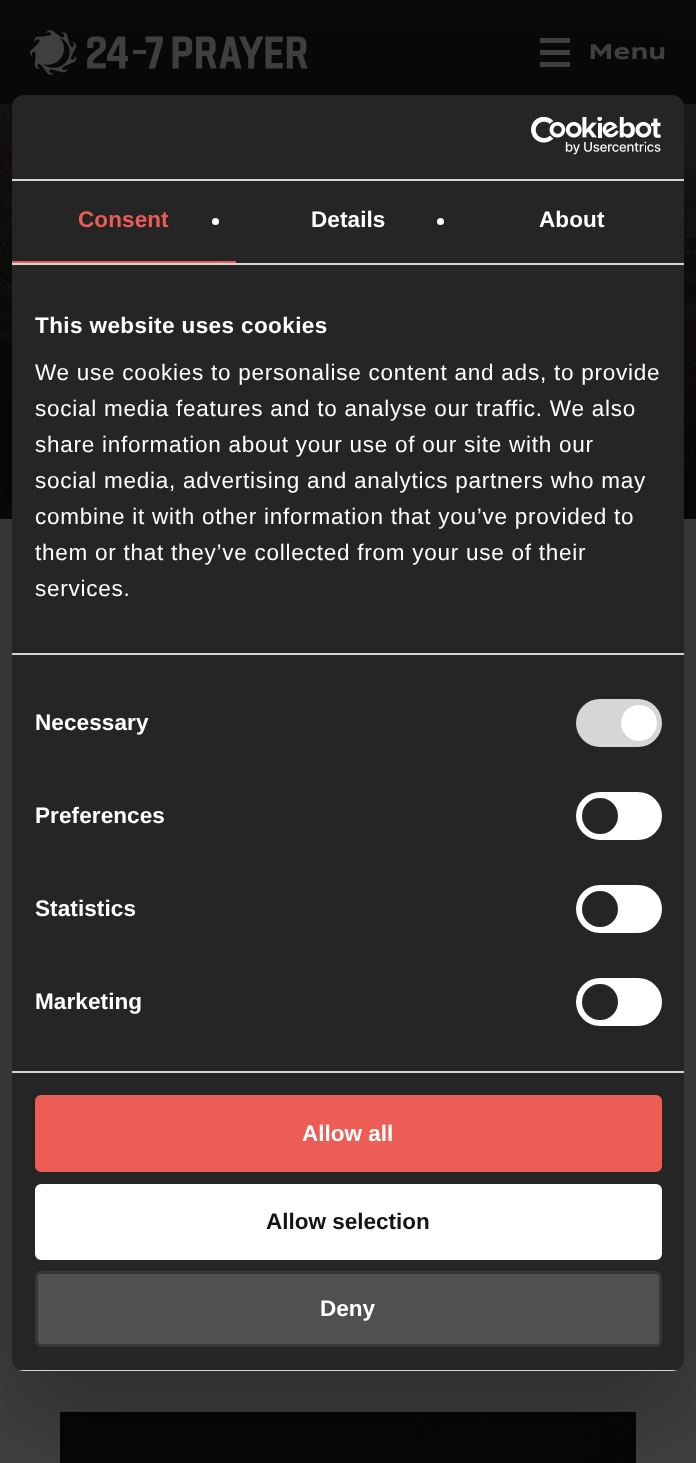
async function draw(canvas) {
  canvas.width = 696
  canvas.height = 1463
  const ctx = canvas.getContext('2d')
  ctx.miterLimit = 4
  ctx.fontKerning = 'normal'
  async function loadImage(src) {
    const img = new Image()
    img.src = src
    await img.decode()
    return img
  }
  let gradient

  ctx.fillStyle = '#404040'
  ctx.fillRect(0, 0, 696, 1463)
  ctx.fillStyle = '#090909'
  ctx.fillRect(0, 0, 696, 104)
  ctx.drawImage(await loadImage('image0.png'), 30, 30, 278, 45)
  ctx.fillStyle = '#404040'
  ctx.fillRect(540, 50, 30, 5)
  ctx.fillRect(540, 38, 30, 5)
  ctx.fillRect(540, 62, 30, 5)
  ctx.letterSpacing = '1px'
  ctx.font = 'bold 21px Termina'
  ctx.fillText('Menu', 589, 59)
  ctx.fillStyle = '#0e0e0e'
  ctx.fillRect(0, 104, 696, 415)
  ctx.drawImage(await loadImage('image1.png'), 0, 104, 696, 415)
  gradient = ctx.createLinearGradient(348, 106, 348, 519)
  gradient.addColorStop(0, '#08080800')
  gradient.addColorStop(1, '#080808b0')
  ctx.fillStyle = gradient
  ctx.fillRect(0, 189, 696, 330)
  ctx.fillStyle = '#070707'
  ctx.fillRect(60, 1412, 576, 51)
  ctx.drawImage(await loadImage('image3.png'), 60, 1411, 576, 52)
  ctx.fillStyle = '#0000004d'
  ctx.filter = 'blur(51px)'
  ctx.beginPath()
  ctx.roundRect(12, 143, 672, 1276, 12)
  ctx.fill()
  ctx.filter = 'none'
  ctx.fillStyle = '#252525'
  ctx.beginPath()
  ctx.roundRect(12, 95, 672, 1276, 12)
  ctx.fill()
  ctx.fillStyle = '#d6d6d6'
  ctx.fillRect(12, 179, 672, 2)
  ctx.drawImage(await loadImage('image2.png'), 531, 117, 130, 38)
  ctx.fillRect(12, 263, 672, 2)
  ctx.fillStyle = '#ec5d56'
  ctx.fillRect(12, 261, 224, 2)
  ctx.letterSpacing = '0.1px'
  ctx.font = 'bold 22.5px Liberation Sans'
  ctx.fillText('Consent', 78, 227)
  ctx.fillStyle = '#fff'
  ctx.beginPath()
  ctx.arc(215.5, 221.5, 3.5, 0, 2 * Math.PI)
  ctx.fill()
  ctx.fillText('Details', 311, 227)
  ctx.beginPath()
  ctx.arc(440.5, 221.5, 3.5, 0, 2 * Math.PI)
  ctx.fill()
  ctx.fillText('About', 539, 227)
  ctx.fillStyle = '#d6d6d6'
  ctx.fillRect(12, 653, 672, 2)
  ctx.letterSpacing = '0.4px'
  ctx.fillStyle = '#fff'
  ctx.fillText('This website uses cookies', 35, 333)
  ctx.letterSpacing = '0.75px'
  ctx.font = '22.5px Liberation Sans'
  ctx.fillText('We use cookies to personalise content and ads, to provide', 35, 380)
  ctx.fillText('social media features and to analyse our traffic. We also', 35, 416)
  ctx.fillText('share information about your use of our site with our', 35, 452)
  ctx.fillText('social media, advertising and analytics partners who may', 35, 488)
  ctx.fillText('combine it with other information that you’ve provided to', 35, 524)
  ctx.fillText('them or that they’ve collected from your use of their', 35, 560)
  ctx.fillText('services.', 35, 596)
  ctx.fillStyle = '#d6d6d6'
  ctx.fillRect(12, 1071, 672, 2)
  ctx.letterSpacing = '0.1px'
  ctx.font = 'bold 22.5px Liberation Sans'
  ctx.fillStyle = '#fff'
  ctx.fillText('Necessary', 35, 730)
  ctx.fillStyle = '#d6d6d6'
  ctx.beginPath()
  ctx.roundRect(576, 699, 86, 48, 24)
  ctx.fill()
  ctx.fillStyle = '#fff'
  ctx.beginPath()
  ctx.arc(639, 723, 18, 0, 2 * Math.PI)
  ctx.fill()
  ctx.fillText('Preferences', 35, 823)
  ctx.beginPath()
  ctx.roundRect(576, 792, 86, 48, 24)
  ctx.fill()
  ctx.fillStyle = '#252525'
  ctx.beginPath()
  ctx.arc(600, 816, 18, 0, 2 * Math.PI)
  ctx.fill()
  ctx.fillStyle = '#fff'
  ctx.fillText('Statistics', 35, 916)
  ctx.beginPath()
  ctx.roundRect(576, 885, 86, 48, 24)
  ctx.fill()
  ctx.fillStyle = '#252525'
  ctx.beginPath()
  ctx.arc(600, 909, 18, 0, 2 * Math.PI)
  ctx.fill()
  ctx.fillStyle = '#fff'
  ctx.fillText('Marketing', 35, 1009)
  ctx.beginPath()
  ctx.roundRect(576, 978, 86, 48, 24)
  ctx.fill()
  ctx.fillStyle = '#252525'
  ctx.beginPath()
  ctx.arc(600, 1002, 18, 0, 2 * Math.PI)
  ctx.fill()
  ctx.save()
  ctx.beginPath()
  ctx.roundRect(12, 95, 672, 1276, 12)
  ctx.clip()
  ctx.fillStyle = '#d6d6d6'
  ctx.fillRect(12, 1370, 672, 1)
  ctx.restore()
  ctx.fillStyle = '#ec5d56'
  ctx.beginPath()
  ctx.roundRect(36.5, 1096.5, 624, 74, 4.5)
  ctx.fill()
  ctx.strokeStyle = '#ec5d56'
  ctx.lineWidth = 3
  ctx.stroke()
  ctx.letterSpacing = '0px'
  ctx.fillStyle = '#fff'
  ctx.fillText('Allow all', 302, 1141)
  ctx.beginPath()
  ctx.roundRect(36.5, 1185.5, 624, 73, 4.5)
  ctx.fill()
  ctx.strokeStyle = '#fff'
  ctx.stroke()
  ctx.fillStyle = '#141414'
  ctx.fillText('Allow selection', 266, 1229)
  ctx.fillStyle = '#505051'
  ctx.beginPath()
  ctx.roundRect(36.5, 1272.5, 624, 73, 4.5)
  ctx.fill()
  ctx.strokeStyle = '#373738'
  ctx.stroke()
  ctx.fillStyle = '#fff'
  ctx.fillText('Deny', 320, 1316)
}

draw(document.querySelector('canvas'))
